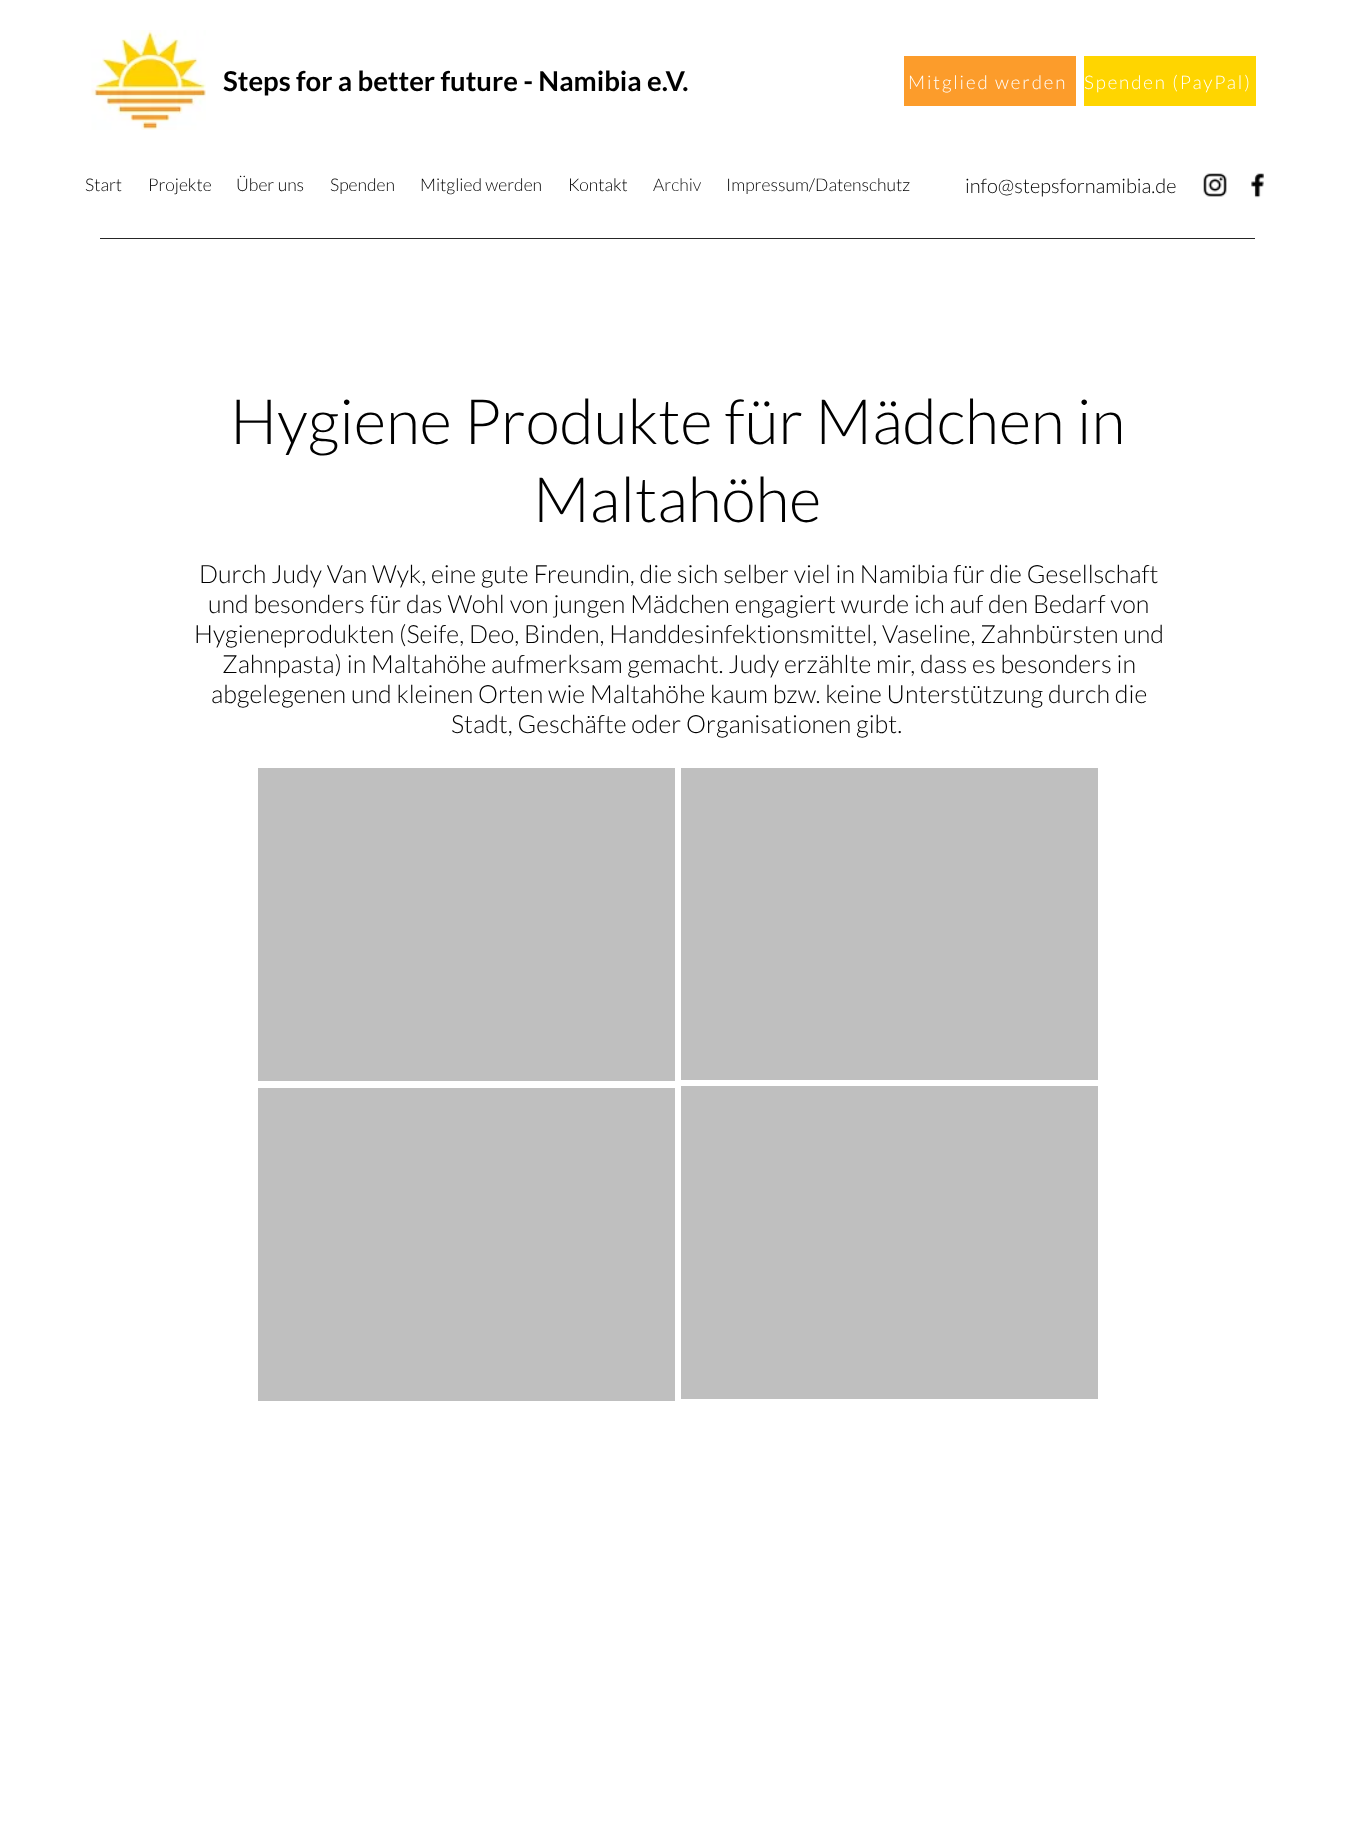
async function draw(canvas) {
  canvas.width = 1355
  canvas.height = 1832
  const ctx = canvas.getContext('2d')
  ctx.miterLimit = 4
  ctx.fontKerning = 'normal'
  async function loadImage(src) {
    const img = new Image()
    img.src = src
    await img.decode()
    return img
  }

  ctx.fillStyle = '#fff'
  ctx.fillRect(0, 0, 1355, 1832)
  ctx.drawImage(await loadImage('image0.png'), 91, 30, 115, 100)
  ctx.font = 'bold 27.5px Lato'
  ctx.fillStyle = '#000'
  ctx.fillText('Steps for a better future - Namibia e.V.', 223, 91)
  ctx.fillStyle = '#fc9c2b'
  ctx.fillRect(904, 56, 172, 50)
  ctx.letterSpacing = '1.9px'
  ctx.font = '300 18.75px Lato'
  ctx.fillStyle = '#fff'
  ctx.fillText('Mitglied werden', 908, 89)
  ctx.fillStyle = '#ffd500'
  ctx.fillRect(1084, 56, 172, 50)
  ctx.fillStyle = '#fff'
  ctx.fillText('Spenden (PayPal)', 1084, 89)
  ctx.letterSpacing = '0px'
  ctx.font = '300 17.5px Lato'
  ctx.fillStyle = '#000'
  ctx.fillText('Start', 85, 191)
  ctx.fillText('Projekte', 148, 191)
  ctx.fillText('Über uns', 236, 191)
  ctx.fillText('Spenden', 330, 191)
  ctx.fillText('Mitglied werden', 420, 191)
  ctx.fillText('Kontakt', 568, 191)
  ctx.fillStyle = '#161616'
  ctx.fillText('Archiv', 653, 191)
  ctx.fillStyle = '#000'
  ctx.fillText('Impressum/Datenschutz', 726, 191)
  ctx.font = '300 20px Lato'
  ctx.fillText('info@stepsfornamibia.de', 965, 193)
  ctx.drawImage(await loadImage('image1.png'), 1203, 173, 24, 24)
  ctx.drawImage(await loadImage('image2.png'), 1251, 173, 13, 25)
  ctx.fillStyle = '#262626'
  ctx.fillRect(100, 238, 1155, 1)
  ctx.font = '300 62.5px Lato'
  ctx.fillStyle = '#000'
  ctx.fillText('Hygiene Produkte für Mädchen in', 230, 444)
  ctx.fillText('Maltahöhe', 533, 522)
  ctx.font = '300 25px Lato'
  ctx.fillText('Durch Judy Van Wyk, eine gute Freundin, die sich selber viel in Namibia für die Gesellschaft', 199, 583)
  ctx.fillText('und besonders für das Wohl von jungen Mädchen engagiert wurde ich auf den Bedarf von', 208, 613)
  ctx.fillText('Hygieneprodukten (Seife, Deo, Binden, Handdesinfektionsmittel, Vaseline, Zahnbürsten und', 194, 643)
  ctx.fillText('Zahnpasta) in Maltahöhe aufmerksam gemacht. Judy erzählte mir, dass es besonders in', 222, 673)
  ctx.fillText('abgelegenen und kleinen Orten wie Maltahöhe kaum bzw. keine Unterstützung durch die', 211, 703)
  ctx.fillText('Stadt, Geschäfte oder Organisationen gibt.', 451, 733)
  ctx.fillStyle = '#bfbfbf'
  ctx.fillRect(258, 768, 417, 313)
  ctx.fillRect(681, 768, 417, 312)
  ctx.fillRect(258, 1088, 417, 313)
  ctx.fillRect(681, 1086, 417, 313)
}

draw(document.querySelector('canvas'))
